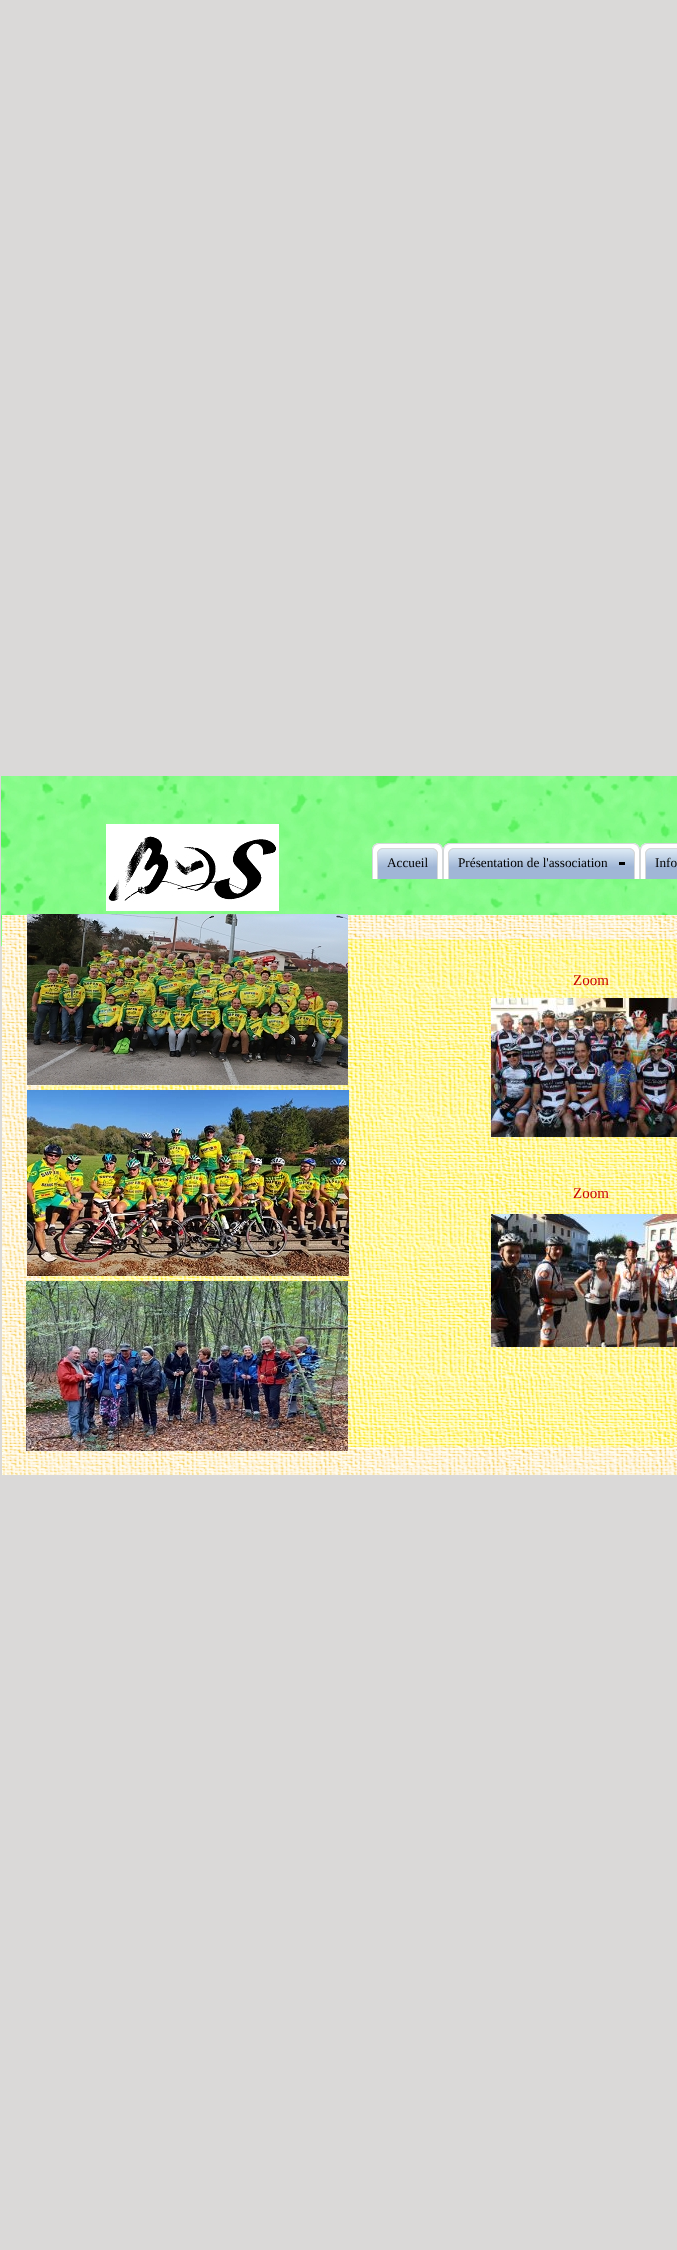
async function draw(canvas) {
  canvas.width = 677
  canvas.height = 2250
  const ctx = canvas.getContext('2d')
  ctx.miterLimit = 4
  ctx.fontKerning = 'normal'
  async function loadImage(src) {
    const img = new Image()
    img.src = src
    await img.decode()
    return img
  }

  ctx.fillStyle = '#dad9d8'
  ctx.fillRect(0, 0, 677, 2250)
  ctx.drawImage(await loadImage('image0.png'), 1, 776, 676, 170)
  ctx.drawImage(await loadImage('image1.png'), 106, 824, 173, 87)
  ctx.drawImage(await loadImage('image2.png'), 372, 843, 10, 36)
  ctx.drawImage(await loadImage('image3.png'), 382, 843, 51, 36)
  ctx.font = '13.25px Liberation Serif'
  ctx.fillStyle = '#000'
  ctx.fillText('Accueil', 387, 867)
  ctx.drawImage(await loadImage('image4.png'), 433, 843, 10, 36)
  ctx.drawImage(await loadImage('image5.png'), 443, 843, 10, 36)
  ctx.drawImage(await loadImage('image6.png'), 453, 843, 161, 36)
  ctx.fillText('Présentation de l\'association', 458, 867)
  ctx.drawImage(await loadImage('image7.png'), 614, 843, 16, 36)
  ctx.fillRect(619, 862, 6, 3)
  ctx.drawImage(await loadImage('image8.png'), 630, 843, 10, 36)
  ctx.drawImage(await loadImage('image9.png'), 640, 843, 10, 36)
  ctx.drawImage(await loadImage('image10.png'), 650, 843, 27, 36)
  ctx.fillText('Info', 655, 867)
  ctx.drawImage(await loadImage('image12.png'), 2, 915, 675, 560)
  ctx.drawImage(await loadImage('image11.png'), 27, 914, 321, 171)
  ctx.drawImage(await loadImage('image13.png'), 27, 1090, 322, 186)
  ctx.font = '15px Liberation Serif'
  ctx.fillStyle = '#ca0000'
  ctx.fillText('Zoom', 573, 985)
  ctx.drawImage(await loadImage('image14.png'), 491, 998, 186, 139)
  ctx.fillText('Zoom', 573, 1198)
  ctx.drawImage(await loadImage('image15.png'), 491, 1214, 186, 133)
  ctx.drawImage(await loadImage('image16.png'), 26, 1281, 322, 170)
}

draw(document.querySelector('canvas'))
